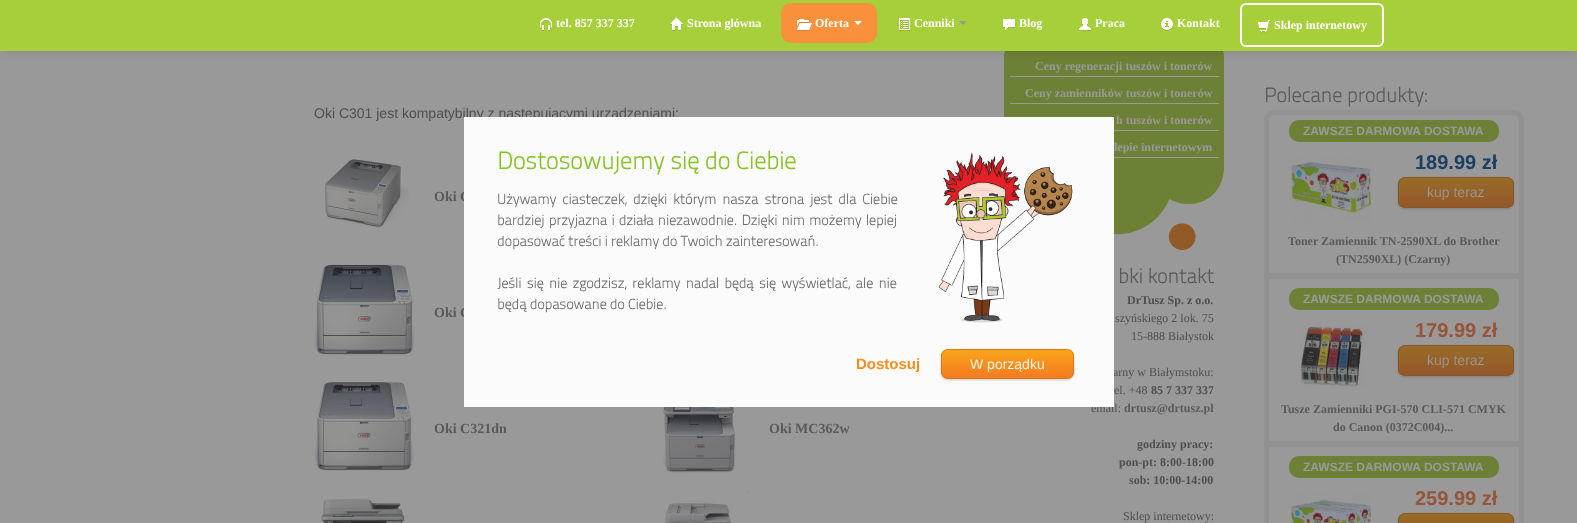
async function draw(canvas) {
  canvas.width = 1577
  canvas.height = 523
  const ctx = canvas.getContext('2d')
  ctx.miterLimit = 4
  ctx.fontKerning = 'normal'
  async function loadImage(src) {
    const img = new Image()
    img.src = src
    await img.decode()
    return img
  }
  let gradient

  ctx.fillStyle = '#999'
  ctx.fillRect(0, 0, 1577, 523)
  ctx.fillStyle = '#6d8136'
  ctx.beginPath()
  ctx.roundRect(1004, 45, 220, 123, [10, 10, 0, 0])
  ctx.fill()
  ctx.fillStyle = '#0000001a'
  ctx.filter = 'blur(5px)'
  ctx.beginPath()
  ctx.rect(0, 1, 1577, 51)
  ctx.fill()
  ctx.filter = 'none'
  ctx.fillStyle = '#a6cf39'
  ctx.fillRect(0, 0, 1577, 51)
  ctx.drawImage(await loadImage('image0.png'), 540, 18, 12, 13)
  ctx.font = 'bold 12px Liberation Serif'
  ctx.fillStyle = '#fff'
  ctx.fillText('tel. 857 337 337', 556, 27)
  ctx.drawImage(await loadImage('image1.png'), 670, 17, 13, 14)
  ctx.fillText('Strona główna', 687, 27)
  ctx.fillStyle = '#f9913c'
  ctx.beginPath()
  ctx.roundRect(781, 3, 96, 40, 10)
  ctx.fill()
  ctx.drawImage(await loadImage('image2.png'), 797, 19, 15, 12)
  ctx.fillStyle = '#fff'
  ctx.fillText('Oferta', 815, 27)
  ctx.beginPath()
  ctx.moveTo(854, 21)
  ctx.lineTo(862, 21)
  ctx.lineTo(858, 25)
  ctx.closePath()
  ctx.fill()
  ctx.drawImage(await loadImage('image3.png'), 899, 18, 11, 13)
  ctx.fillText('Cenniki', 914, 27)
  ctx.fillStyle = '#999'
  ctx.beginPath()
  ctx.moveTo(959, 21)
  ctx.lineTo(967, 21)
  ctx.lineTo(963, 25)
  ctx.closePath()
  ctx.fill()
  ctx.drawImage(await loadImage('image4.png'), 1003, 19, 12, 12)
  ctx.fillStyle = '#fff'
  ctx.fillText('Blog', 1019, 27)
  ctx.drawImage(await loadImage('image5.png'), 1079, 18, 12, 13)
  ctx.fillText('Praca', 1095, 27)
  ctx.drawImage(await loadImage('image6.png'), 1161, 18, 12, 13)
  ctx.fillText('Kontakt', 1177, 27)
  ctx.beginPath()
  ctx.roundRect(1241, 4, 142, 42, 5)
  ctx.strokeStyle = '#fff'
  ctx.lineWidth = 2
  ctx.stroke()
  ctx.drawImage(await loadImage('image7.png'), 1258, 20, 12, 13)
  ctx.fillText('Sklep internetowy', 1274, 29)
  ctx.font = '14px Liberation Sans'
  ctx.fillStyle = '#4f4f4f'
  ctx.fillText('Oki C301 jest kompatybilny z następującymi urządzeniami:', 314, 118)
  ctx.drawImage(await loadImage('image8.png'), 324, 159, 85, 69)
  ctx.font = 'bold 14px Liberation Serif'
  ctx.fillStyle = '#5a5a5a'
  ctx.fillText('Oki C', 434, 201)
  ctx.drawImage(await loadImage('image9.png'), 314, 264, 100, 91)
  ctx.fillText('Oki C', 434, 317)
  ctx.drawImage(await loadImage('image10.png'), 314, 382, 100, 89)
  ctx.fillText('Oki C321dn', 434, 433)
  ctx.drawImage(await loadImage('image11.png'), 663, 407, 73, 66)
  ctx.fillText('Oki MC362w', 769, 433)
  ctx.drawImage(await loadImage('image12.png'), 321, 499, 84, 24)
  ctx.drawImage(await loadImage('image13.png'), 665, 492, 84, 31)
  ctx.fillStyle = '#999'
  ctx.fillRect(1009, 76, 210, 1)
  ctx.fillStyle = '#6d8136'
  ctx.fillRect(1009, 76, 1, 1)
  ctx.font = 'bold 12px Liberation Serif'
  ctx.fillStyle = '#999'
  ctx.fillText('Ceny regeneracji tuszów i tonerów', 1035, 70)
  ctx.fillRect(1009, 103, 210, 1)
  ctx.fillStyle = '#6d8136'
  ctx.fillRect(1009, 103, 1, 1)
  ctx.fillStyle = '#999'
  ctx.fillText('Ceny zamienników tuszów i tonerów', 1025, 97)
  ctx.fillRect(1114, 130, 105, 1)
  ctx.fillText('h tuszów i tonerów', 1116, 124)
  ctx.fillRect(1114, 157, 105, 1)
  ctx.fillText('lepie internetowym', 1114, 151)
  ctx.drawImage(await loadImage('image14.png'), 1114, 167, 110, 83)
  ctx.font = 'bold 20px "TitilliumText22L"'
  ctx.fillStyle = '#5a5a5a'
  ctx.fillText('bki kontakt', 1118, 283)
  ctx.font = 'bold 12px Liberation Serif'
  ctx.fillStyle = '#4f4f4f'
  ctx.fillText('DrTusz Sp. z o.o.', 1127, 304)
  ctx.font = '12px Liberation Serif'
  ctx.fillText('szyńskiego 2 lok. 75', 1115, 322)
  ctx.fillText('15-888 Białystok', 1131, 340)
  ctx.fillText('arny w Białymstoku:', 1113, 376)
  ctx.fillText('el. +48', 1114, 394)
  ctx.font = 'bold 12px Liberation Serif'
  ctx.fillText('85 7 337 337', 1151, 394)
  ctx.font = '12px Liberation Serif'
  ctx.fillText('email:', 1091, 412)
  ctx.font = 'bold 12px Liberation Serif'
  ctx.fillStyle = '#5a5a5a'
  ctx.fillText('drtusz@drtusz.pl', 1124, 412)
  ctx.fillStyle = '#4f4f4f'
  ctx.fillText('godziny pracy:', 1137, 448)
  ctx.fillText('pon-pt: 8:00-18:00', 1119, 466)
  ctx.fillText('sob: 10:00-14:00', 1129, 484)
  ctx.font = '12px Liberation Serif'
  ctx.fillText('Sklep internetowy:', 1123, 520)
  ctx.font = 'bold 20px "TitilliumText22L"'
  ctx.fillStyle = '#5a5a5a'
  ctx.fillText('Polecane produkty:', 1264, 102)
  ctx.beginPath()
  ctx.roundRect(1266.5, 112.5, 255, 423, 7.5)
  ctx.strokeStyle = '#919191'
  ctx.lineWidth = 5
  ctx.stroke()
  ctx.fillStyle = '#6d8136'
  ctx.beginPath()
  ctx.roundRect(1289, 120, 210, 22, 10)
  ctx.fill()
  ctx.font = 'bold 12px Liberation Sans'
  ctx.fillStyle = '#999'
  ctx.fillText('ZAWSZE DARMOWA DOSTAWA', 1303, 135)
  ctx.drawImage(await loadImage('image15.png'), 1291, 158, 80, 64)
  ctx.font = 'bold 20px Liberation Sans'
  ctx.fillStyle = '#1a4064'
  ctx.fillText('189.99 zł', 1415, 169)
  ctx.fillStyle = '#1a1a1a33'
  ctx.filter = 'blur(1px)'
  ctx.beginPath()
  ctx.roundRect(1398, 178, 116, 31, 7)
  ctx.fill()
  ctx.filter = 'none'
  ctx.save()
  ctx.beginPath()
  ctx.roundRect(1398, 177, 116, 31, 7)
  ctx.clip()
  gradient = ctx.createLinearGradient(1399, 178, 1399, 207)
  gradient.addColorStop(0, '#976c27')
  gradient.addColorStop(1, '#94572a')
  ctx.fillStyle = gradient
  ctx.fillRect(1398, 178, 116, 29)
  ctx.restore()
  ctx.beginPath()
  ctx.roundRect(1398.5, 177.5, 115, 30, 6.5)
  ctx.strokeStyle = '#875820'
  ctx.lineWidth = 1
  ctx.stroke()
  ctx.font = '14px Liberation Sans'
  ctx.fillStyle = '#99948e'
  ctx.fillText('kup teraz', 1427, 197)
  ctx.font = 'bold 12px Liberation Serif'
  ctx.fillStyle = '#5a5a5a'
  ctx.fillText('Toner Zamiennik TN-2590XL do Brother', 1288, 245)
  ctx.fillText('(TN2590XL) (Czarny)', 1336, 263)
  ctx.fillStyle = '#919191'
  ctx.fillRect(1269, 273, 250, 6)
  ctx.fillStyle = '#6d8136'
  ctx.beginPath()
  ctx.roundRect(1289, 288, 210, 22, 10)
  ctx.fill()
  ctx.font = 'bold 12px Liberation Sans'
  ctx.fillStyle = '#999'
  ctx.fillText('ZAWSZE DARMOWA DOSTAWA', 1303, 303)
  ctx.drawImage(await loadImage('image16.png'), 1300, 325, 66, 64)
  ctx.font = 'bold 20px Liberation Sans'
  ctx.fillStyle = '#965438'
  ctx.fillText('179.99 zł', 1415, 337)
  ctx.fillStyle = '#1a1a1a33'
  ctx.filter = 'blur(1px)'
  ctx.beginPath()
  ctx.roundRect(1398, 346, 116, 31, 7)
  ctx.fill()
  ctx.filter = 'none'
  ctx.save()
  ctx.beginPath()
  ctx.roundRect(1398, 345, 116, 31, 7)
  ctx.clip()
  gradient = ctx.createLinearGradient(1399, 346, 1399, 375)
  gradient.addColorStop(0, '#976c27')
  gradient.addColorStop(1, '#94572a')
  ctx.fillStyle = gradient
  ctx.fillRect(1398, 346, 116, 29)
  ctx.restore()
  ctx.beginPath()
  ctx.roundRect(1398.5, 345.5, 115, 30, 6.5)
  ctx.stroke()
  ctx.font = '14px Liberation Sans'
  ctx.fillStyle = '#99948e'
  ctx.fillText('kup teraz', 1427, 365)
  ctx.font = 'bold 12px Liberation Serif'
  ctx.fillStyle = '#5a5a5a'
  ctx.fillText('Tusze Zamienniki PGI-570 CLI-571 CMYK', 1281, 413)
  ctx.fillText('do Canon (0372C004)...', 1333, 431)
  ctx.fillStyle = '#919191'
  ctx.fillRect(1269, 441, 250, 6)
  ctx.fillStyle = '#6d8136'
  ctx.beginPath()
  ctx.roundRect(1289, 456, 210, 22, 10)
  ctx.fill()
  ctx.font = 'bold 12px Liberation Sans'
  ctx.fillStyle = '#999'
  ctx.fillText('ZAWSZE DARMOWA DOSTAWA', 1303, 471)
  ctx.drawImage(await loadImage('image17.png'), 1291, 494, 80, 29)
  ctx.font = 'bold 20px Liberation Sans'
  ctx.fillStyle = '#965438'
  ctx.fillText('259.99 zł', 1415, 505)
  ctx.fillStyle = '#1a1a1a33'
  ctx.filter = 'blur(1px)'
  ctx.beginPath()
  ctx.roundRect(1398, 514, 116, 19, 7)
  ctx.fill()
  ctx.filter = 'none'
  ctx.save()
  ctx.beginPath()
  ctx.roundRect(1398, 513, 116, 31, 7)
  ctx.clip()
  gradient = ctx.createLinearGradient(1399, 514, 1399, 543)
  gradient.addColorStop(0, '#976c27')
  gradient.addColorStop(1, '#94572a')
  ctx.fillStyle = gradient
  ctx.fillRect(1398, 514, 116, 9)
  ctx.restore()
  ctx.beginPath()
  ctx.roundRect(1398.5, 513.5, 115, 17, 6.5)
  ctx.stroke()
  ctx.fillStyle = '#fbfbfb'
  ctx.fillRect(464, 117, 650, 290)
  ctx.font = 'bold 24px "TitilliumText22L"'
  ctx.fillStyle = '#88c225'
  ctx.fillText('Dostosowujemy się do Ciebie', 497, 169)
  ctx.wordSpacing = '2.75px'
  ctx.font = 'bold 14px "TitilliumText22L"'
  ctx.fillStyle = '#6b6b6b'
  ctx.fillText('Używamy ciasteczek, dzięki którym nasza strona jest dla Ciebie', 497, 204)
  ctx.wordSpacing = '1px'
  ctx.fillText('bardziej przyjazna i działa niezawodnie. Dzięki nim możemy lepiej', 497, 225)
  ctx.wordSpacing = '0px'
  ctx.fillText('dopasować treści i reklamy do Twoich zainteresowań.', 497, 246)
  ctx.wordSpacing = '2.1px'
  ctx.fillText('Jeśli się nie zgodzisz, reklamy nadal będą się wyświetlać, ale nie', 497, 288)
  ctx.wordSpacing = '0px'
  ctx.fillText('będą dopasowane do Ciebie.', 497, 309)
  ctx.drawImage(await loadImage('image18.png'), 938, 152, 135, 171)
  ctx.font = 'bold 15px Liberation Sans'
  ctx.fillStyle = '#f78d1d'
  ctx.fillText('Dostosuj', 856, 369)
  ctx.fillStyle = '#00000033'
  ctx.filter = 'blur(1px)'
  ctx.beginPath()
  ctx.roundRect(941, 350, 133, 30, 7)
  ctx.fill()
  ctx.filter = 'none'
  ctx.save()
  ctx.beginPath()
  ctx.roundRect(941, 349, 133, 30, 7)
  ctx.clip()
  gradient = ctx.createLinearGradient(942, 350, 942, 378)
  gradient.addColorStop(0, '#faa51a')
  gradient.addColorStop(1, '#f47a20')
  ctx.fillStyle = gradient
  ctx.fillRect(941, 350, 133, 28)
  ctx.restore()
  ctx.beginPath()
  ctx.roundRect(941.5, 349.5, 132, 29, 6.5)
  ctx.strokeStyle = '#da7c0c'
  ctx.stroke()
  ctx.font = '14px Liberation Sans'
  ctx.fillStyle = '#fef4e9'
  ctx.fillText('W porządku', 970, 369)
}

draw(document.querySelector('canvas'))
